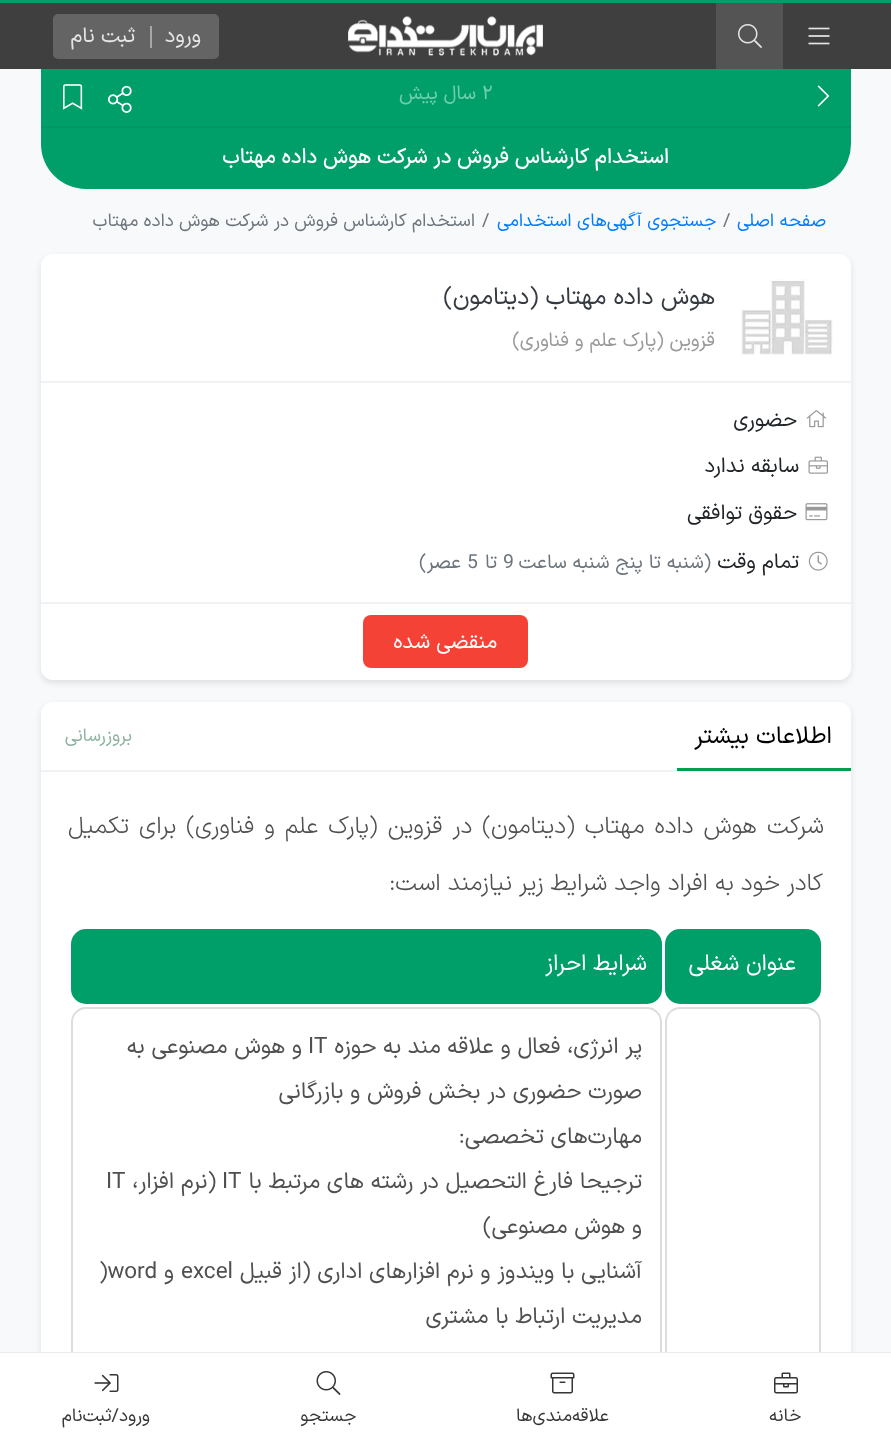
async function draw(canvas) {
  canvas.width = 891
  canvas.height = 1447
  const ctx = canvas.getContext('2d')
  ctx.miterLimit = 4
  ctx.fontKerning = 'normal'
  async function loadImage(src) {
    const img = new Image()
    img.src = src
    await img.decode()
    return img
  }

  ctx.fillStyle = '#f8f9fa'
  ctx.fillRect(0, 0, 891, 1447)
  ctx.fillStyle = '#009f6a'
  ctx.fillRect(0, 0, 891, 3)
  ctx.beginPath()
  ctx.roundRect(41, 65, 810, 124, [0, 0, 45, 45])
  ctx.fill()
  ctx.fillStyle = '#3f3f3f'
  ctx.fillRect(0, 3, 891, 66)
  ctx.drawImage(await loadImage('image0.png'), 808, 27, 22, 18)
  ctx.fillStyle = '#545454'
  ctx.fillRect(716, 3, 67, 66)
  ctx.drawImage(await loadImage('image1.png'), 738, 24, 24, 24)
  ctx.drawImage(await loadImage('image2.png'), 348, 16, 195, 40)
  ctx.fillStyle = '#646464'
  ctx.beginPath()
  ctx.roundRect(53, 14, 166, 45, 5)
  ctx.fill()
  ctx.direction = 'rtl'
  ctx.font = '21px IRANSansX'
  ctx.fillStyle = '#e5e5e5'
  ctx.fillText('ورود', 201, 42)
  ctx.fillStyle = '#a7a7a7'
  ctx.fillRect(150, 26, 2, 22)
  ctx.fillStyle = '#e5e5e5'
  ctx.fillText('ثبت نام', 135, 42)
  ctx.drawImage(await loadImage('image3.png'), 817, 85, 13, 22)
  ctx.direction = 'ltr'
  ctx.font = '19.5px IRANSansX'
  ctx.fillStyle = '#6ecfae'
  ctx.fillText('۲', 482, 99)
  ctx.direction = 'rtl'
  ctx.fillText('سال پیش', 476, 99)
  ctx.drawImage(await loadImage('image4.png'), 108, 85, 24, 28)
  ctx.drawImage(await loadImage('image5.png'), 63, 84, 20, 26)
  ctx.fillStyle = '#009765'
  ctx.fillRect(41, 126, 810, 2)
  ctx.font = '500 21px IRANSansX'
  ctx.fillStyle = '#fff'
  ctx.fillText('استخدام کارشناس فروش در شرکت هوش داده مهتاب', 669, 163)
  ctx.font = '18px IRANSansX'
  ctx.fillStyle = '#007bff'
  ctx.fillText('صفحه اصلی', 826, 226)
  ctx.direction = 'ltr'
  ctx.fillStyle = '#6c757d'
  ctx.fillText('/', 723, 226)
  ctx.direction = 'rtl'
  ctx.fillStyle = '#007bff'
  ctx.fillText('جستجوی آگهی‌های استخدامی', 716, 226)
  ctx.direction = 'ltr'
  ctx.fillStyle = '#6c757d'
  ctx.fillText('/', 482, 226)
  ctx.direction = 'rtl'
  ctx.fillText('استخدام کارشناس فروش در شرکت هوش داده مهتاب', 475, 226)
  ctx.fillStyle = '#0000001a'
  ctx.filter = 'blur(3px)'
  ctx.beginPath()
  ctx.roundRect(41, 257, 810, 426, 12)
  ctx.fill()
  ctx.filter = 'none'
  ctx.fillStyle = '#fff'
  ctx.beginPath()
  ctx.roundRect(41, 254, 810, 426, 12)
  ctx.fill()
  ctx.drawImage(await loadImage('image6.png'), 741, 279, 92, 76)
  ctx.font = '24px IRANSansX'
  ctx.fillStyle = '#343a40'
  ctx.fillText('هوش داده مهتاب (دیتامون)', 715, 304)
  ctx.font = '19.5px IRANSansX'
  ctx.fillStyle = '#999'
  ctx.fillText('قزوین (پارک علم و فناوری)', 715, 346)
  ctx.fillStyle = '#f2f2f2'
  ctx.fillRect(41, 381, 810, 2)
  ctx.drawImage(await loadImage('image7.png'), 806, 410, 21, 18)
  ctx.font = '21px IRANSansX'
  ctx.fillStyle = '#212529'
  ctx.fillText('حضوری', 797, 426)
  ctx.drawImage(await loadImage('image8.png'), 808, 456, 20, 18)
  ctx.fillText('سابقه ندارد', 799, 472)
  ctx.drawImage(await loadImage('image9.png'), 805, 503, 23, 18)
  ctx.fillText('حقوق توافقی', 797, 519)
  ctx.drawImage(await loadImage('image10.png'), 808, 551, 20, 20)
  ctx.fillText('تمام وقت', 799, 568)
  ctx.font = '19.5px IRANSansX'
  ctx.fillStyle = '#6c757d'
  ctx.fillText('(شنبه تا پنج شنبه ساعت', 711, 568)
  ctx.direction = 'ltr'
  ctx.fillText('9', 503, 568)
  ctx.direction = 'rtl'
  ctx.fillText('تا', 497, 568)
  ctx.direction = 'ltr'
  ctx.fillText('5', 467, 568)
  ctx.direction = 'rtl'
  ctx.fillText('عصر)', 461, 568)
  ctx.fillStyle = '#f2f2f2'
  ctx.fillRect(41, 602, 810, 2)
  ctx.fillStyle = '#f44336'
  ctx.beginPath()
  ctx.roundRect(363, 615, 165, 53, 8)
  ctx.fill()
  ctx.font = '21px IRANSansX'
  ctx.fillStyle = '#fff'
  ctx.fillText('منقضی شده', 497, 648)
  ctx.fillStyle = '#0000001a'
  ctx.filter = 'blur(3px)'
  ctx.beginPath()
  ctx.roundRect(41, 705, 810, 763, 12)
  ctx.fill()
  ctx.filter = 'none'
  ctx.fillStyle = '#fff'
  ctx.beginPath()
  ctx.roundRect(41, 702, 810, 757, 12)
  ctx.fill()
  ctx.fillStyle = '#f2f2f2'
  ctx.fillRect(41, 770, 810, 2)
  ctx.font = '24px IRANSansX'
  ctx.fillStyle = '#000'
  ctx.fillText('اطلاعات بیشتر', 832, 743)
  ctx.fillStyle = '#009e4e'
  ctx.fillRect(677, 768, 174, 3)
  ctx.font = '18px IRANSansX'
  ctx.fillStyle = '#8eb2a0'
  ctx.fillText('بروزرسانی', 132, 741)
  ctx.wordSpacing = '2.9px'
  ctx.font = '300 24px IRANSansX'
  ctx.fillStyle = '#505050'
  ctx.fillText('شرکت هوش داده مهتاب (دیتامون) در قزوین (پارک علم و فناوری) برای تکمیل', 824, 833)
  ctx.wordSpacing = '0px'
  ctx.fillText('کادر خود به افراد واجد شرایط زیر نیازمند است:', 823, 890)
  ctx.fillStyle = '#009f6a'
  ctx.beginPath()
  ctx.roundRect(665, 929, 156, 75, 15)
  ctx.fill()
  ctx.font = '22.5px IRANSansX'
  ctx.fillStyle = '#fff'
  ctx.fillText('عنوان شغلی', 796, 970)
  ctx.fillStyle = '#009f6a'
  ctx.beginPath()
  ctx.roundRect(71, 929, 591, 75, 15)
  ctx.fill()
  ctx.fillStyle = '#fff'
  ctx.fillText('شرایط احراز', 647, 970)
  ctx.beginPath()
  ctx.roundRect(666, 1008, 154, 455, 14)
  ctx.strokeStyle = '#ddd'
  ctx.lineWidth = 2
  ctx.stroke()
  ctx.beginPath()
  ctx.roundRect(72, 1008, 589, 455, 14)
  ctx.stroke()
  ctx.fillStyle = '#505050'
  ctx.fillText('پر انرژی، فعال و علاقه مند به حوزه', 642, 1053)
  ctx.direction = 'ltr'
  ctx.fillText('IT', 308, 1053)
  ctx.direction = 'rtl'
  ctx.fillText('و هوش مصنوعی به', 302, 1053)
  ctx.fillText('صورت حضوری در بخش فروش و بازرگانی', 642, 1098)
  ctx.fillText('مهارت‌های تخصصی:', 642, 1143)
  ctx.fillText('ترجیحا فارغ التحصیل در رشته های مرتبط با', 642, 1188)
  ctx.direction = 'ltr'
  ctx.fillText('IT', 222, 1188)
  ctx.direction = 'rtl'
  ctx.fillText('(نرم افزار،', 216, 1188)
  ctx.direction = 'ltr'
  ctx.fillText('IT', 106, 1188)
  ctx.direction = 'rtl'
  ctx.fillText('و هوش مصنوعی)', 642, 1233)
  ctx.fillText('آشنایی با ویندوز و نرم افزارهای اداری (از قبیل', 642, 1278)
  ctx.direction = 'ltr'
  ctx.fillText('excel', 181, 1278)
  ctx.direction = 'rtl'
  ctx.fillText('و', 174, 1278)
  ctx.direction = 'ltr'
  ctx.fillText(')word', 99, 1278)
  ctx.direction = 'rtl'
  ctx.fillText('مدیریت ارتباط با مشتری', 642, 1323)
  ctx.fillStyle = '#ebebeb'
  ctx.fillRect(0, 1352, 891, 1)
  ctx.fillStyle = '#fff'
  ctx.fillRect(819, 1353, 72, 94)
  ctx.drawImage(await loadImage('image11.png'), 774, 1372, 24, 22)
  ctx.font = '18px IRANSansX'
  ctx.fillStyle = '#363636'
  ctx.fillText('خانه', 801, 1421)
  ctx.fillStyle = '#fff'
  ctx.fillRect(660, 1353, 7, 94)
  ctx.drawImage(await loadImage('image12.png'), 550, 1372, 25, 22)
  ctx.fillStyle = '#363636'
  ctx.fillText('علاقه‌مندی‌ها', 609, 1421)
  ctx.drawImage(await loadImage('image13.png'), 316, 1371, 25, 24)
  ctx.fillText('جستجو', 356, 1421)
  ctx.fillStyle = '#fff'
  ctx.fillRect(0, 1353, 73, 94)
  ctx.drawImage(await loadImage('image14.png'), 94, 1374, 25, 18)
  ctx.fillStyle = '#363636'
  ctx.fillText('ورود/ثبت‌نام', 150, 1421)
}

draw(document.querySelector('canvas'))
